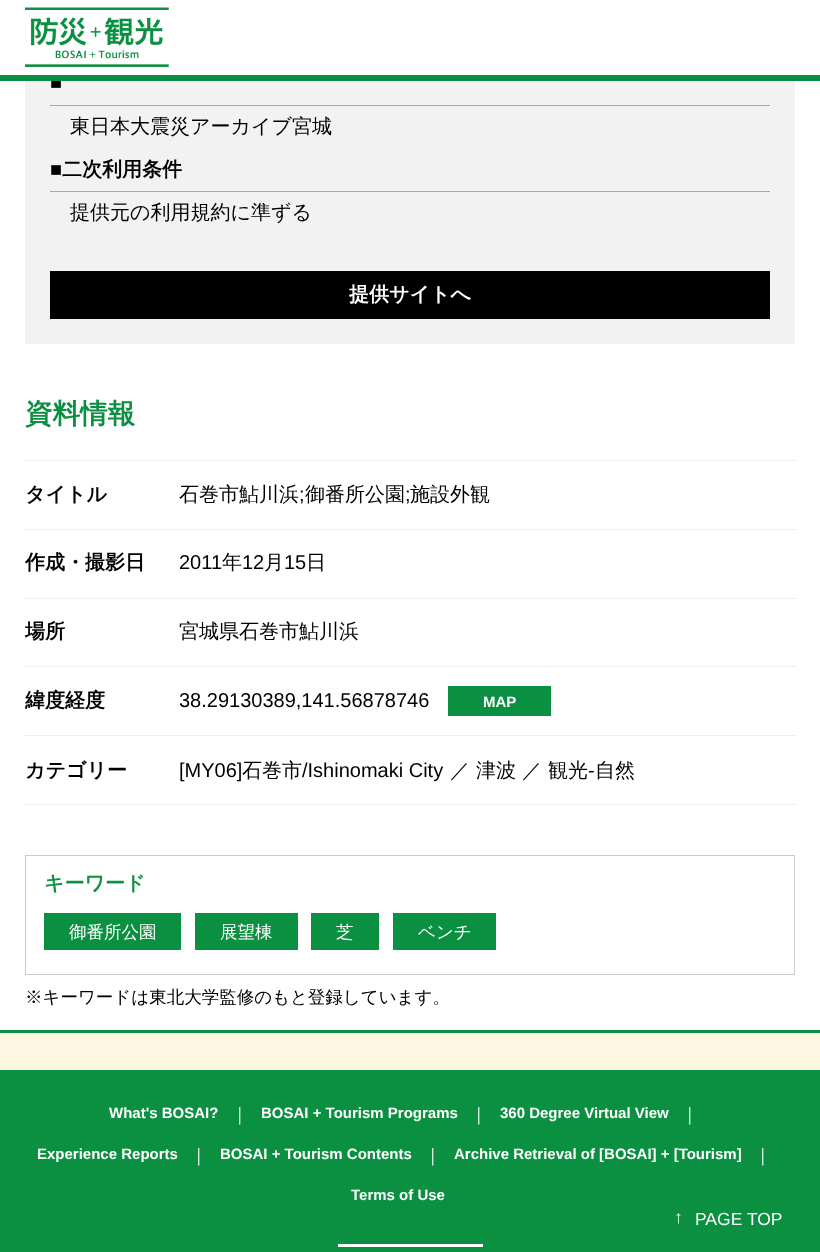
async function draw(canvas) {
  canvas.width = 820
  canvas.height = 1252
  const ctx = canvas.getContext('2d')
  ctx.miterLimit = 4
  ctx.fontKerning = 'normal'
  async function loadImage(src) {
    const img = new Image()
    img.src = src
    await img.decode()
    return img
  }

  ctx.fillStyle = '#fff'
  ctx.fillRect(0, 0, 820, 1252)
  ctx.fillStyle = '#f2f2f2'
  ctx.fillRect(25, 81, 770, 263)
  ctx.font = 'bold 20px Liberation Sans'
  ctx.fillStyle = '#000'
  ctx.fillText('■', 50, 89)
  ctx.fillStyle = '#0b8f40'
  ctx.fillRect(0, 75, 820, 6)
  ctx.drawImage(await loadImage('image0.png'), 25, 7, 144, 60)
  ctx.fillStyle = '#aaa'
  ctx.fillRect(50, 105, 720, 1)
  ctx.font = '500 20px WenQuanYi Zen Hei'
  ctx.fillStyle = '#000'
  ctx.fillText('東日本大震災アーカイブ宮城', 70, 133)
  ctx.fillStyle = '#aaa'
  ctx.fillRect(50, 191, 720, 1)
  ctx.font = 'bold 20px Liberation Sans'
  ctx.fillStyle = '#000'
  ctx.fillText('■', 50, 176)
  ctx.font = 'bold 20px WenQuanYi Zen Hei'
  ctx.fillText('二次利用条件', 62, 176)
  ctx.font = '500 20px WenQuanYi Zen Hei'
  ctx.fillText('提供元の利用規約に準ずる', 70, 219)
  ctx.fillRect(50, 271, 720, 48)
  ctx.font = 'bold 20px WenQuanYi Zen Hei'
  ctx.fillStyle = '#fff'
  ctx.fillText('提供サイトへ', 349, 301)
  ctx.font = 'bold 27.5px WenQuanYi Zen Hei'
  ctx.fillStyle = '#0b8f40'
  ctx.fillText('資料情報', 25, 423)
  ctx.font = 'bold 20px WenQuanYi Zen Hei'
  ctx.fillStyle = '#000'
  ctx.fillText('タイトル', 25, 501)
  ctx.fillStyle = '#efefef'
  ctx.fillRect(25, 460, 771, 1)
  ctx.fillRect(25, 529, 771, 1)
  ctx.font = '500 20px WenQuanYi Zen Hei'
  ctx.fillStyle = '#000'
  ctx.fillText('石巻市鮎川浜', 179, 501)
  ctx.font = '20px Liberation Sans'
  ctx.fillText(';', 299, 501)
  ctx.font = '500 20px WenQuanYi Zen Hei'
  ctx.fillText('御番所公園', 305, 501)
  ctx.font = '20px Liberation Sans'
  ctx.fillText(';', 405, 501)
  ctx.font = '500 20px WenQuanYi Zen Hei'
  ctx.fillText('施設外観', 410, 501)
  ctx.font = 'bold 20px WenQuanYi Zen Hei'
  ctx.fillText('作成・撮影日', 25, 569)
  ctx.fillStyle = '#efefef'
  ctx.fillRect(25, 598, 771, 1)
  ctx.font = '20px Liberation Sans'
  ctx.fillStyle = '#000'
  ctx.fillText('2011', 179, 569)
  ctx.font = '500 20px WenQuanYi Zen Hei'
  ctx.fillText('年', 222, 569)
  ctx.font = '20px Liberation Sans'
  ctx.fillText('12', 242, 569)
  ctx.font = '500 20px WenQuanYi Zen Hei'
  ctx.fillText('月', 264, 569)
  ctx.font = '20px Liberation Sans'
  ctx.fillText('15', 284, 569)
  ctx.font = '500 20px WenQuanYi Zen Hei'
  ctx.fillText('日', 306, 569)
  ctx.font = 'bold 20px WenQuanYi Zen Hei'
  ctx.fillText('場所', 25, 638)
  ctx.fillStyle = '#efefef'
  ctx.fillRect(25, 666, 771, 1)
  ctx.font = '500 20px WenQuanYi Zen Hei'
  ctx.fillStyle = '#000'
  ctx.fillText('宮城県石巻市鮎川浜', 179, 638)
  ctx.font = 'bold 20px WenQuanYi Zen Hei'
  ctx.fillText('緯度経度', 25, 707)
  ctx.fillStyle = '#efefef'
  ctx.fillRect(25, 735, 771, 1)
  ctx.font = '20px Liberation Sans'
  ctx.fillStyle = '#000'
  ctx.fillText('38.29130389,141.56878746', 179, 707)
  ctx.fillStyle = '#0b8f40'
  ctx.fillRect(448, 686, 103, 30)
  ctx.font = 'bold 15px Liberation Sans'
  ctx.fillStyle = '#fff'
  ctx.fillText('MAP', 483, 707)
  ctx.font = 'bold 20px WenQuanYi Zen Hei'
  ctx.fillStyle = '#000'
  ctx.fillText('カテゴリー', 25, 777)
  ctx.fillStyle = '#efefef'
  ctx.fillRect(25, 804, 771, 1)
  ctx.font = '20px Liberation Sans'
  ctx.fillStyle = '#000'
  ctx.fillText('[MY06]', 179, 777)
  ctx.font = '500 20px WenQuanYi Zen Hei'
  ctx.fillText('石巻市', 242, 777)
  ctx.font = '20px Liberation Sans'
  ctx.fillText('/Ishinomaki City', 302, 777)
  ctx.font = '500 20px WenQuanYi Zen Hei'
  ctx.fillText('／ 津波 ／ 観光', 450, 777)
  ctx.font = '20px Liberation Sans'
  ctx.fillText('-', 588, 777)
  ctx.font = '500 20px WenQuanYi Zen Hei'
  ctx.fillText('自然', 595, 777)
  ctx.strokeStyle = '#cccbcb'
  ctx.strokeRect(25.5, 855.5, 769, 119)
  ctx.font = 'bold 20px WenQuanYi Zen Hei'
  ctx.fillStyle = '#0b8f40'
  ctx.fillText('キーワード', 44, 890)
  ctx.fillRect(44, 913, 137, 37)
  ctx.font = '500 17.5px WenQuanYi Zen Hei'
  ctx.fillStyle = '#fff'
  ctx.fillText('御番所公園', 69, 938)
  ctx.fillStyle = '#0b8f40'
  ctx.fillRect(195, 913, 103, 37)
  ctx.fillStyle = '#fff'
  ctx.fillText('展望棟', 220, 938)
  ctx.fillStyle = '#0b8f40'
  ctx.fillRect(311, 913, 68, 37)
  ctx.fillStyle = '#fff'
  ctx.fillText('芝', 336, 938)
  ctx.fillStyle = '#0b8f40'
  ctx.fillRect(393, 913, 103, 37)
  ctx.fillStyle = '#fff'
  ctx.fillText('ベンチ', 418, 938)
  ctx.fillStyle = '#000'
  ctx.fillText('※キーワードは東北大学監修のもと登録しています。', 25, 1003)
  ctx.fillStyle = '#fbf7e0'
  ctx.fillRect(0, 1033, 820, 37)
  ctx.fillStyle = '#0b8f40'
  ctx.fillRect(0, 1030, 820, 3)
  ctx.fillRect(0, 1070, 820, 182)
  ctx.font = 'bold 15px Liberation Sans'
  ctx.fillStyle = '#fff'
  ctx.fillText('What\'s BOSAI?', 109, 1118)
  ctx.font = '500 17.5px WenQuanYi Zen Hei'
  ctx.fillText('｜', 231, 1120)
  ctx.font = 'bold 15px Liberation Sans'
  ctx.fillText('BOSAI + Tourism Programs', 261, 1118)
  ctx.font = '500 17.5px WenQuanYi Zen Hei'
  ctx.fillText('｜', 470, 1120)
  ctx.font = 'bold 15px Liberation Sans'
  ctx.fillText('360 Degree Virtual View', 500, 1118)
  ctx.font = '500 17.5px WenQuanYi Zen Hei'
  ctx.fillText('｜', 681, 1120)
  ctx.font = 'bold 15px Liberation Sans'
  ctx.fillText('Experience Reports', 37, 1159)
  ctx.font = '500 17.5px WenQuanYi Zen Hei'
  ctx.fillText('｜', 190, 1161)
  ctx.font = 'bold 15px Liberation Sans'
  ctx.fillText('BOSAI + Tourism Contents', 220, 1159)
  ctx.font = '500 17.5px WenQuanYi Zen Hei'
  ctx.fillText('｜', 424, 1161)
  ctx.font = 'bold 15px Liberation Sans'
  ctx.fillText('Archive Retrieval of [BOSAI] + [Tourism]', 454, 1159)
  ctx.font = '500 17.5px WenQuanYi Zen Hei'
  ctx.fillText('｜', 754, 1161)
  ctx.font = 'bold 15px Liberation Sans'
  ctx.fillText('Terms of Use', 351, 1200)
  ctx.font = '17.5px Liberation Sans'
  ctx.fillText('↑', 674, 1223)
  ctx.fillText('PAGE TOP', 695, 1225)
  ctx.fillRect(338, 1244, 145, 3)
}

draw(document.querySelector('canvas'))
